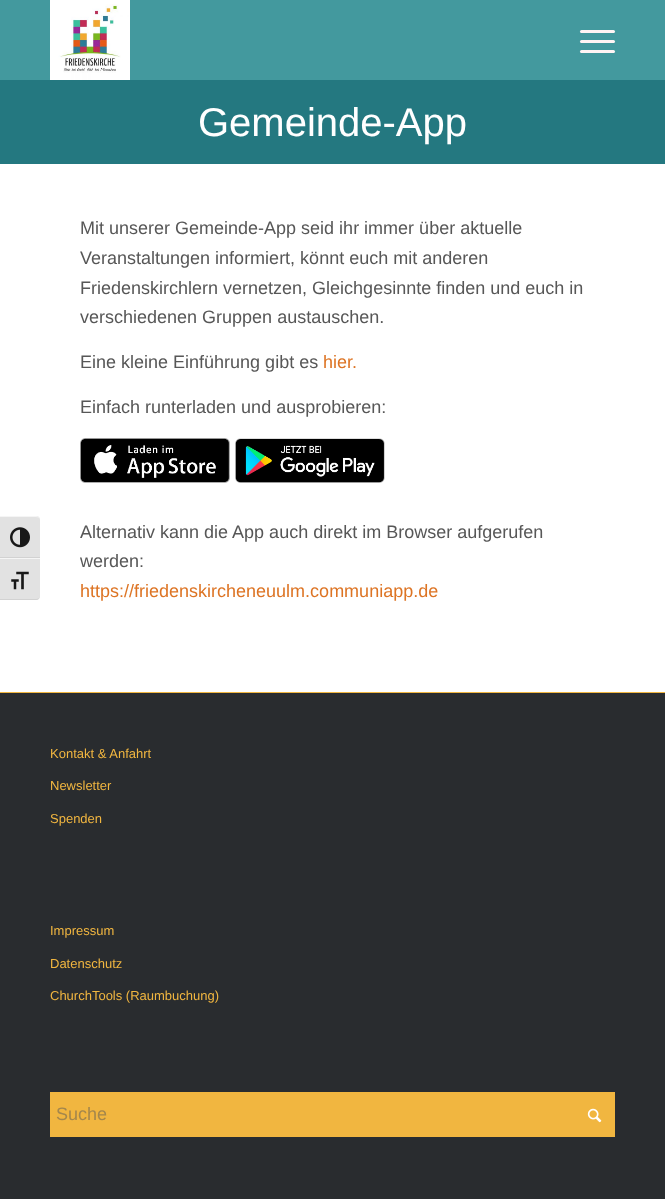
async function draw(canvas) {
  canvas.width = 665
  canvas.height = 1199
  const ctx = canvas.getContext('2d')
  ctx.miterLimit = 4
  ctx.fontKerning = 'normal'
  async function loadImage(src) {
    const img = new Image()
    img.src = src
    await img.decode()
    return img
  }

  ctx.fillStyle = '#fff'
  ctx.fillRect(0, 0, 665, 1199)
  ctx.fillStyle = '#e2e2e2'
  ctx.beginPath()
  ctx.roundRect(0, 516, 40, 42, [0, 4, 0, 0])
  ctx.fill()
  ctx.fillStyle = '#f5f5f5'
  ctx.beginPath()
  ctx.moveTo(0, 516)
  ctx.lineTo(0, 517)
  ctx.lineTo(36, 517)
  ctx.bezierCurveTo(38, 517, 40, 518, 40, 520)
  ctx.bezierCurveTo(40, 518, 38, 516, 36, 516)
  ctx.closePath()
  ctx.fill()
  ctx.fillStyle = '#d2d2d2'
  ctx.fillRect(0, 557, 40, 1)
  ctx.drawImage(await loadImage('image0.png'), 10, 527, 20, 21)
  ctx.fillStyle = '#e2e2e2'
  ctx.beginPath()
  ctx.roundRect(0, 558, 40, 42, [0, 0, 4, 0])
  ctx.fill()
  ctx.fillStyle = '#f5f5f5'
  ctx.fillRect(0, 558, 40, 1)
  ctx.fillStyle = '#d2d2d2'
  ctx.beginPath()
  ctx.moveTo(0, 599)
  ctx.lineTo(0, 600)
  ctx.lineTo(36, 600)
  ctx.bezierCurveTo(38, 600, 40, 598, 40, 596)
  ctx.bezierCurveTo(40, 598, 38, 599, 36, 599)
  ctx.closePath()
  ctx.fill()
  ctx.drawImage(await loadImage('image1.png'), 11, 571, 18, 19)
  ctx.fillStyle = '#43999e'
  ctx.fillRect(0, 0, 665, 80)
  ctx.drawImage(await loadImage('image2.png'), 50, 0, 80, 80)
  ctx.fillStyle = '#fff4f4'
  ctx.beginPath()
  ctx.roundRect(580, 40, 35, 3, 1.5)
  ctx.fill()
  ctx.beginPath()
  ctx.roundRect(580, 30, 35, 3, 1.5)
  ctx.fill()
  ctx.beginPath()
  ctx.roundRect(580, 50, 35, 3, 1.5)
  ctx.fill()
  ctx.fillStyle = '#247880'
  ctx.fillRect(0, 80, 665, 84)
  ctx.font = '40px Liberation Sans'
  ctx.fillStyle = '#fff'
  ctx.fillText('Gemeinde-App', 198, 136)
  ctx.font = '18px Liberation Sans'
  ctx.fillStyle = '#575757'
  ctx.fillText('Mit unserer Gemeinde-App seid ihr immer über aktuelle', 80, 234)
  ctx.fillText('Veranstaltungen informiert, könnt euch mit anderen', 80, 264)
  ctx.fillText('Friedenskirchlern vernetzen, Gleichgesinnte finden und euch in', 80, 294)
  ctx.fillText('verschiedenen Gruppen austauschen.', 80, 323)
  ctx.fillText('Eine kleine Einführung gibt es', 80, 368)
  ctx.fillStyle = '#dd7424'
  ctx.fillText('hier.', 323, 368)
  ctx.fillStyle = '#575757'
  ctx.fillText('Einfach runterladen und ausprobieren:', 80, 413)
  ctx.drawImage(await loadImage('image3.png'), 80, 438, 150, 45)
  ctx.drawImage(await loadImage('image4.png'), 235, 438, 150, 45)
  ctx.fillText('Alternativ kann die App auch direkt im Browser aufgerufen', 80, 538)
  ctx.fillText('werden:', 80, 567)
  ctx.fillStyle = '#dd7424'
  ctx.fillText('https://friedenskircheneuulm.communiapp.de', 80, 597)
  ctx.fillStyle = '#292c2f'
  ctx.fillRect(0, 693, 665, 506)
  ctx.fillStyle = '#f1b640'
  ctx.fillRect(0, 692, 665, 1)
  ctx.font = '13px Liberation Sans'
  ctx.fillText('Kontakt & Anfahrt', 50, 758)
  ctx.fillText('Newsletter', 50, 790)
  ctx.fillText('Spenden', 50, 823)
  ctx.fillText('Impressum', 50, 935)
  ctx.fillText('Datenschutz', 50, 968)
  ctx.fillText('ChurchTools (Raumbuchung)', 50, 1000)
  ctx.fillRect(50, 1092, 565, 45)
  ctx.font = '18px Liberation Sans'
  ctx.fillStyle = '#a4874c'
  ctx.fillText('Suche', 56, 1120)
  ctx.drawImage(await loadImage('image5.png'), 587, 1108, 15, 15)
}

draw(document.querySelector('canvas'))
